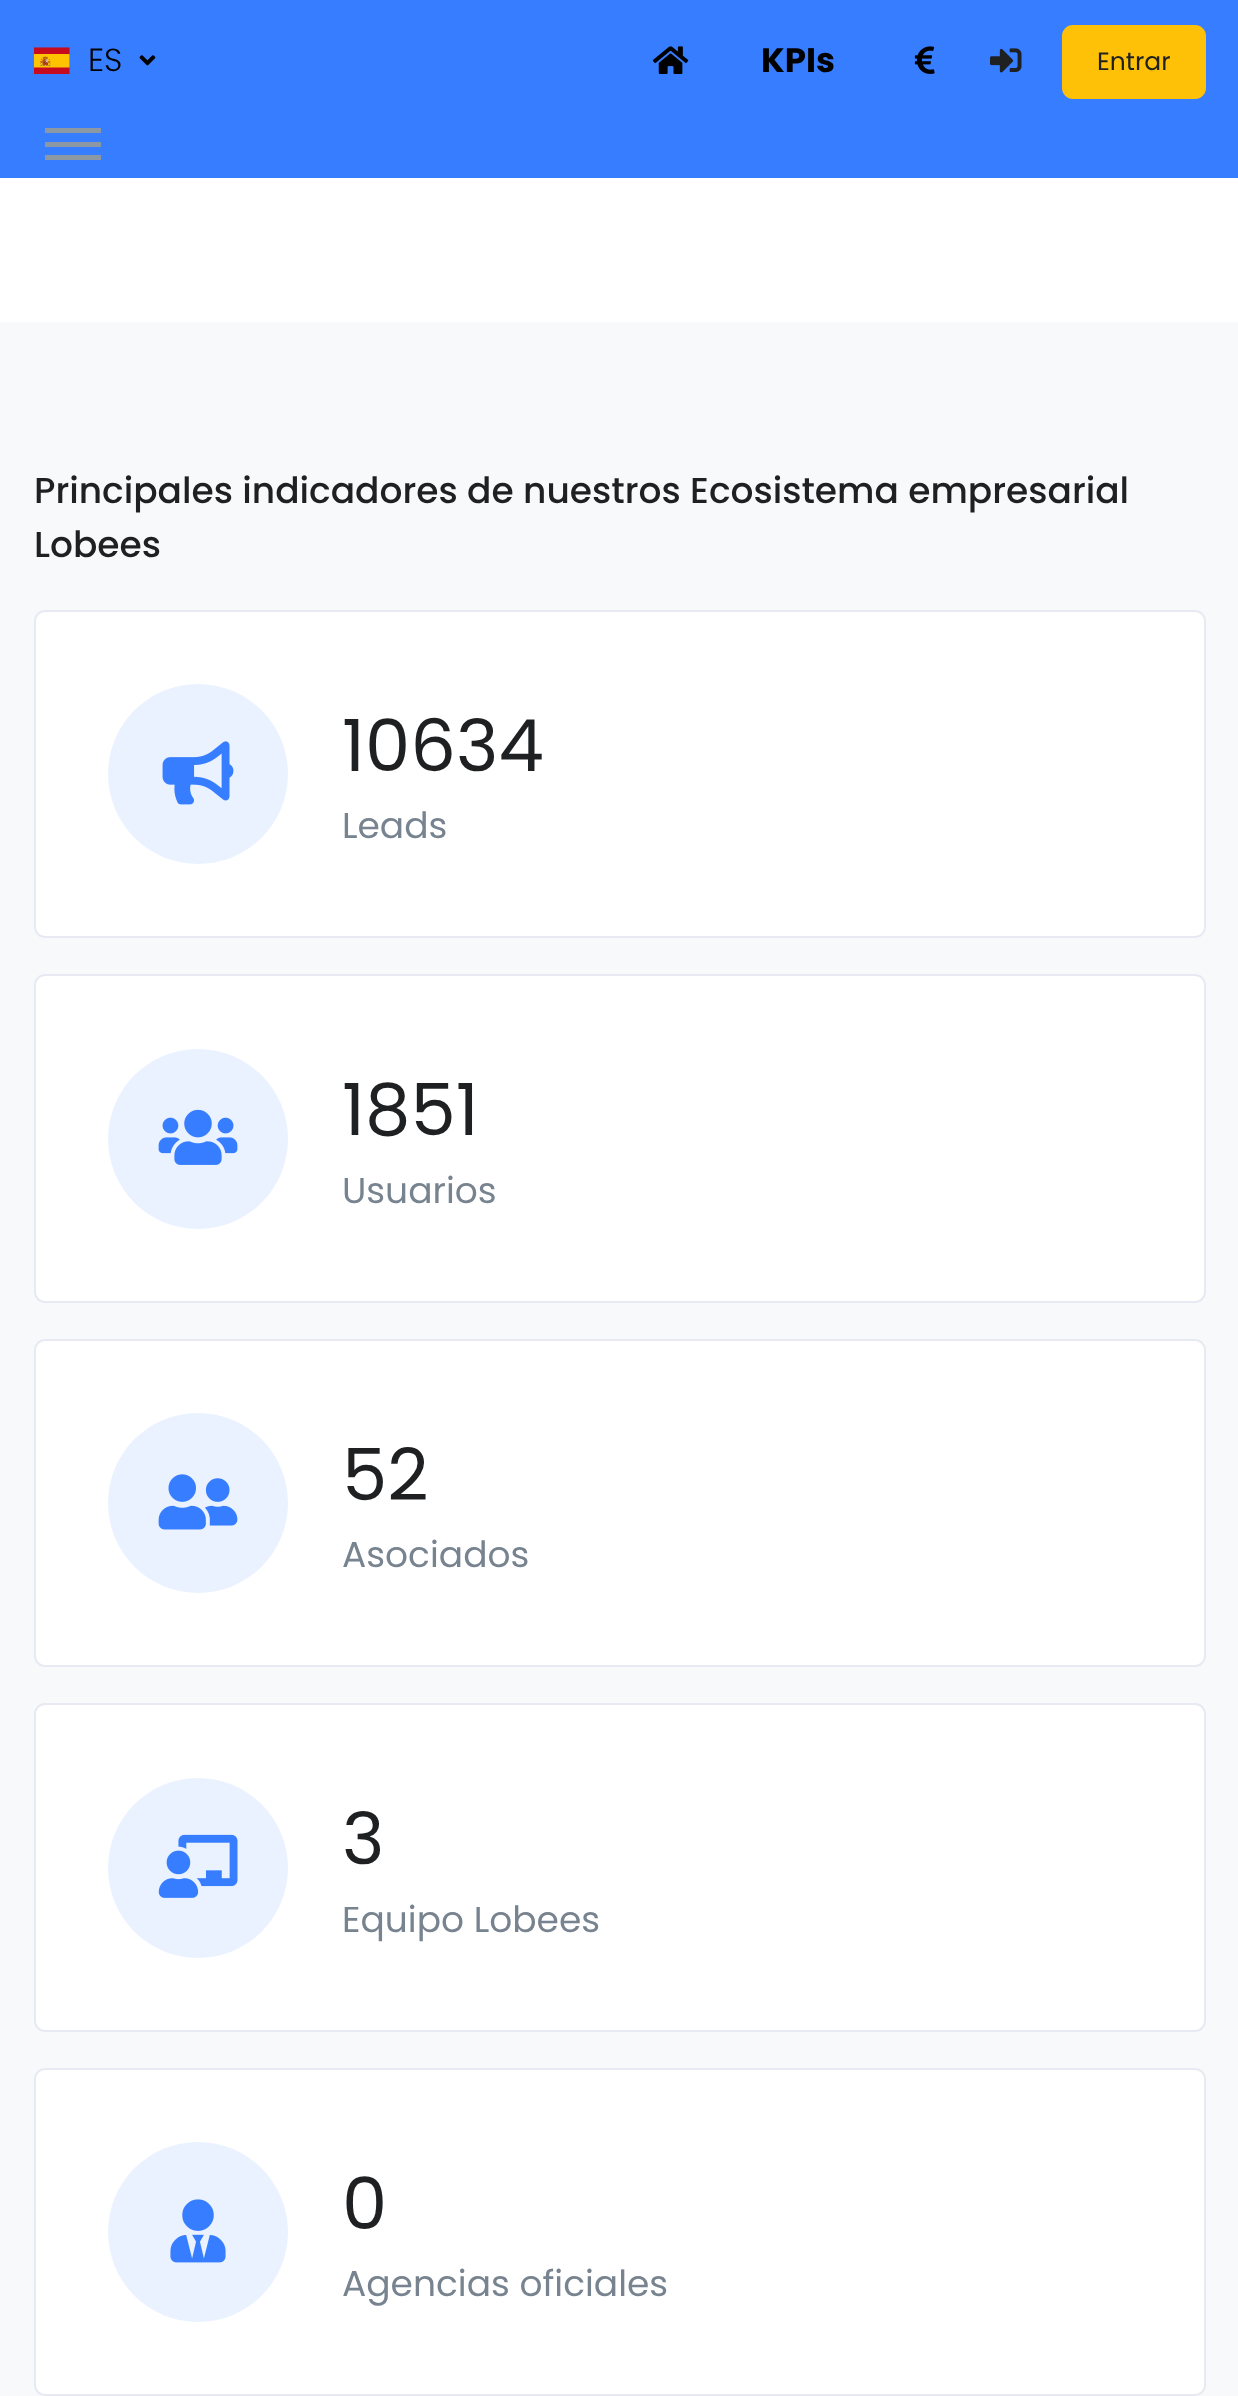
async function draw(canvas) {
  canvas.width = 1238
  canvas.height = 2396
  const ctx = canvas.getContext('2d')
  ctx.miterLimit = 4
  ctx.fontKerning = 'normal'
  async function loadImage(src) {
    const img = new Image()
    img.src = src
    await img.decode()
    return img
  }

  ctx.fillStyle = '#fff'
  ctx.fillRect(0, 0, 1238, 2396)
  ctx.fillStyle = '#377dff'
  ctx.fillRect(0, 0, 1238, 178)
  ctx.drawImage(await loadImage('image0.png'), 34, 47, 36, 27)
  ctx.font = '300 32px Poppins'
  ctx.fillStyle = '#000'
  ctx.fillText('ES', 88, 71)
  ctx.drawImage(await loadImage('image1.png'), 139, 55, 17, 11)
  ctx.drawImage(await loadImage('image2.png'), 652, 46, 37, 28)
  ctx.font = 'bold 34px Poppins'
  ctx.fillText('KPIs', 761, 72)
  ctx.drawImage(await loadImage('image3.png'), 914, 46, 21, 28)
  ctx.drawImage(await loadImage('image4.png'), 990, 48, 32, 25)
  ctx.fillStyle = '#ffc107'
  ctx.beginPath()
  ctx.roundRect(1063, 26, 142, 72, 10)
  ctx.fill()
  ctx.strokeStyle = '#ffc107'
  ctx.lineWidth = 2
  ctx.stroke()
  ctx.font = '25px Poppins'
  ctx.fillStyle = '#1e2022'
  ctx.fillText('Entrar', 1097, 70)
  ctx.fillStyle = '#8c98a4'
  ctx.fillRect(45, 128, 56, 5)
  ctx.fillRect(45, 142, 56, 5)
  ctx.fillRect(45, 155, 56, 5)
  ctx.fillStyle = '#f8f9fa'
  ctx.fillRect(0, 322, 1238, 2074)
  ctx.font = '500 36px Poppins'
  ctx.fillStyle = '#1e2022'
  ctx.fillText('Principales indicadores de nuestros Ecosistema empresarial', 34, 503)
  ctx.fillText('Lobees', 34, 557)
  ctx.fillStyle = '#fff'
  ctx.beginPath()
  ctx.roundRect(35, 611, 1170, 326, 10)
  ctx.fill()
  ctx.strokeStyle = '#e7eaf3'
  ctx.stroke()
  ctx.fillStyle = '#ebf2ff'
  ctx.beginPath()
  ctx.arc(198, 774, 90, 0, 2 * Math.PI)
  ctx.fill()
  ctx.drawImage(await loadImage('image5.png'), 162, 741, 72, 64)
  ctx.font = '72px Poppins'
  ctx.fillStyle = '#1e2022'
  ctx.fillText('10634', 342, 771)
  ctx.font = '36px Poppins'
  ctx.fillStyle = '#77838f'
  ctx.fillText('Leads', 342, 838)
  ctx.fillStyle = '#fff'
  ctx.beginPath()
  ctx.roundRect(35, 975, 1170, 327, 10)
  ctx.fill()
  ctx.stroke()
  ctx.fillStyle = '#ebf2ff'
  ctx.beginPath()
  ctx.arc(198, 1139, 90, 0, 2 * Math.PI)
  ctx.fill()
  ctx.drawImage(await loadImage('image6.png'), 158, 1109, 80, 56)
  ctx.font = '72px Poppins'
  ctx.fillStyle = '#1e2022'
  ctx.fillText('1851', 342, 1135)
  ctx.font = '36px Poppins'
  ctx.fillStyle = '#77838f'
  ctx.fillText('Usuarios', 342, 1203)
  ctx.fillStyle = '#fff'
  ctx.beginPath()
  ctx.roundRect(35, 1340, 1170, 326, 10)
  ctx.fill()
  ctx.stroke()
  ctx.fillStyle = '#ebf2ff'
  ctx.beginPath()
  ctx.arc(198, 1503, 90, 0, 2 * Math.PI)
  ctx.fill()
  ctx.drawImage(await loadImage('image7.png'), 158, 1474, 80, 56)
  ctx.font = '72px Poppins'
  ctx.fillStyle = '#1e2022'
  ctx.fillText('52', 342, 1500)
  ctx.font = '36px Poppins'
  ctx.fillStyle = '#77838f'
  ctx.fillText('Asociados', 342, 1567)
  ctx.fillStyle = '#fff'
  ctx.beginPath()
  ctx.roundRect(35, 1704, 1170, 327, 10)
  ctx.fill()
  ctx.stroke()
  ctx.fillStyle = '#ebf2ff'
  ctx.beginPath()
  ctx.arc(198, 1868, 90, 0, 2 * Math.PI)
  ctx.fill()
  ctx.drawImage(await loadImage('image8.png'), 158, 1834, 80, 64)
  ctx.font = '72px Poppins'
  ctx.fillStyle = '#1e2022'
  ctx.fillText('3', 342, 1864)
  ctx.font = '36px Poppins'
  ctx.fillStyle = '#77838f'
  ctx.fillText('Equipo Lobees', 342, 1932)
  ctx.fillStyle = '#fff'
  ctx.beginPath()
  ctx.roundRect(35, 2069, 1170, 326, 10)
  ctx.fill()
  ctx.stroke()
  ctx.fillStyle = '#ebf2ff'
  ctx.beginPath()
  ctx.arc(198, 2232, 90, 0, 2 * Math.PI)
  ctx.fill()
  ctx.drawImage(await loadImage('image9.png'), 170, 2199, 56, 64)
  ctx.font = '72px Poppins'
  ctx.fillStyle = '#1e2022'
  ctx.fillText('0', 342, 2229)
  ctx.font = '36px Poppins'
  ctx.fillStyle = '#77838f'
  ctx.fillText('Agencias oficiales', 342, 2296)
}

draw(document.querySelector('canvas'))
